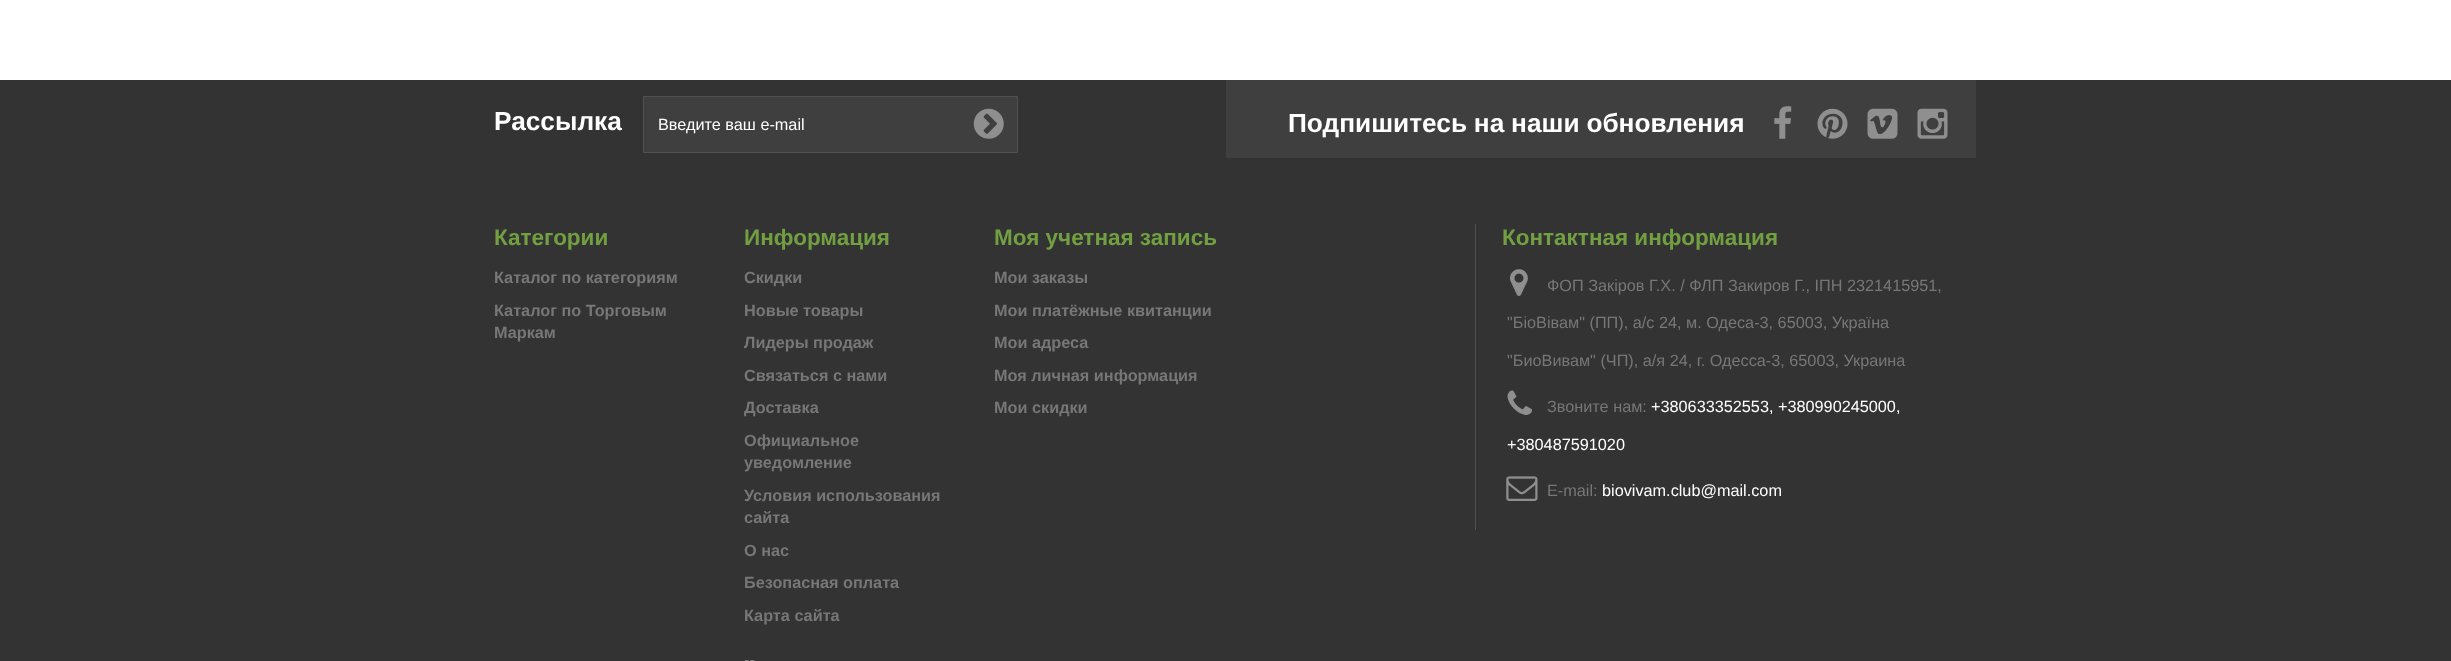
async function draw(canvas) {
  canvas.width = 2451
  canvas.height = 661
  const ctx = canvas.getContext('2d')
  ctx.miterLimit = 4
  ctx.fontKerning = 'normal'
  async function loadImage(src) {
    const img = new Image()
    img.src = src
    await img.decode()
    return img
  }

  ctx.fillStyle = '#333'
  ctx.fillRect(0, 0, 2451, 661)
  ctx.fillStyle = '#fff'
  ctx.fillRect(0, 0, 2451, 80)
  ctx.font = 'bold 26.25px Liberation Sans'
  ctx.fillText('Рассылка', 494, 130)
  ctx.fillStyle = '#3f3f3f'
  ctx.beginPath()
  ctx.rect(643.5, 96.5, 374, 56)
  ctx.fill()
  ctx.strokeStyle = '#515151'
  ctx.stroke()
  ctx.font = '16.25px Liberation Sans'
  ctx.fillStyle = '#fff'
  ctx.fillText('Введите ваш e-mail', 658, 130)
  ctx.drawImage(await loadImage('image0.png'), 973, 108, 31, 31)
  ctx.fillStyle = '#3f3f3f'
  ctx.fillRect(1226, 80, 750, 78)
  ctx.wordSpacing = '-0.5px'
  ctx.font = 'bold 26.25px Liberation Sans'
  ctx.fillStyle = '#fff'
  ctx.fillText('Подпишитесь на наши обновления', 1288, 132)
  ctx.drawImage(await loadImage('image1.png'), 1774, 106, 18, 33)
  ctx.drawImage(await loadImage('image2.png'), 1817, 108, 31, 31)
  ctx.drawImage(await loadImage('image3.png'), 1867, 108, 31, 31)
  ctx.drawImage(await loadImage('image4.png'), 1917, 108, 31, 31)
  ctx.wordSpacing = '0px'
  ctx.font = 'bold 22.5px Liberation Sans'
  ctx.fillStyle = '#719f41'
  ctx.fillText('Категории', 494, 245)
  ctx.font = 'bold 16.25px Liberation Sans'
  ctx.fillStyle = '#777'
  ctx.fillText('Каталог по категориям', 494, 283)
  ctx.fillText('Каталог по Торговым', 494, 316)
  ctx.fillText('Маркам', 494, 338)
  ctx.font = 'bold 22.5px Liberation Sans'
  ctx.fillStyle = '#719f41'
  ctx.fillText('Информация', 744, 245)
  ctx.font = 'bold 16.25px Liberation Sans'
  ctx.fillStyle = '#777'
  ctx.fillText('Скидки', 744, 283)
  ctx.fillText('Новые товары', 744, 316)
  ctx.fillText('Лидеры продаж', 744, 348)
  ctx.fillText('Связаться с нами', 744, 381)
  ctx.fillText('Доставка', 744, 413)
  ctx.fillText('Официальное', 744, 446)
  ctx.fillText('уведомление', 744, 468)
  ctx.fillText('Условия использования', 744, 501)
  ctx.fillText('сайта', 744, 523)
  ctx.fillText('О нас', 744, 556)
  ctx.fillText('Безопасная оплата', 744, 588)
  ctx.fillText('Карта сайта', 744, 621)
  ctx.font = '16.25px Liberation Sans'
  ctx.fillText('--', 744, 665)
  ctx.font = 'bold 22.5px Liberation Sans'
  ctx.fillStyle = '#719f41'
  ctx.fillText('Моя учетная запись', 994, 245)
  ctx.font = 'bold 16.25px Liberation Sans'
  ctx.fillStyle = '#777'
  ctx.fillText('Мои заказы', 994, 283)
  ctx.fillText('Мои платёжные квитанции', 994, 316)
  ctx.fillText('Мои адреса', 994, 348)
  ctx.fillText('Моя личная информация', 994, 381)
  ctx.fillText('Мои скидки', 994, 413)
  ctx.fillStyle = '#515151'
  ctx.fillRect(1475, 224, 1, 306)
  ctx.font = 'bold 22.5px Liberation Sans'
  ctx.fillStyle = '#719f41'
  ctx.fillText('Контактная информация', 1502, 245)
  ctx.drawImage(await loadImage('image5.png'), 1510, 269, 18, 27)
  ctx.font = '16.25px Liberation Sans'
  ctx.fillStyle = '#777'
  ctx.fillText('ФОП Закіров Г.Х. / ФЛП Закиров Г., ІПН 2321415951,', 1547, 291)
  ctx.fillText('"БіоВівам" (ПП), а/с 24, м. Одеса-3, 65003, Україна', 1507, 328)
  ctx.fillText('"БиоВивам" (ЧП), а/я 24, г. Одесса-3, 65003, Украина', 1507, 366)
  ctx.drawImage(await loadImage('image6.png'), 1507, 390, 25, 25)
  ctx.fillText('Звоните нам:', 1547, 412)
  ctx.fillStyle = '#fff'
  ctx.fillText('+380633352553, +380990245000,', 1651, 412)
  ctx.fillText('+380487591020', 1507, 450)
  ctx.drawImage(await loadImage('image7.png'), 1506, 476, 32, 25)
  ctx.fillStyle = '#777'
  ctx.fillText('E-mail:', 1547, 496)
  ctx.fillStyle = '#fff'
  ctx.fillText('biovivam.club@mail.com', 1602, 496)
}

draw(document.querySelector('canvas'))
